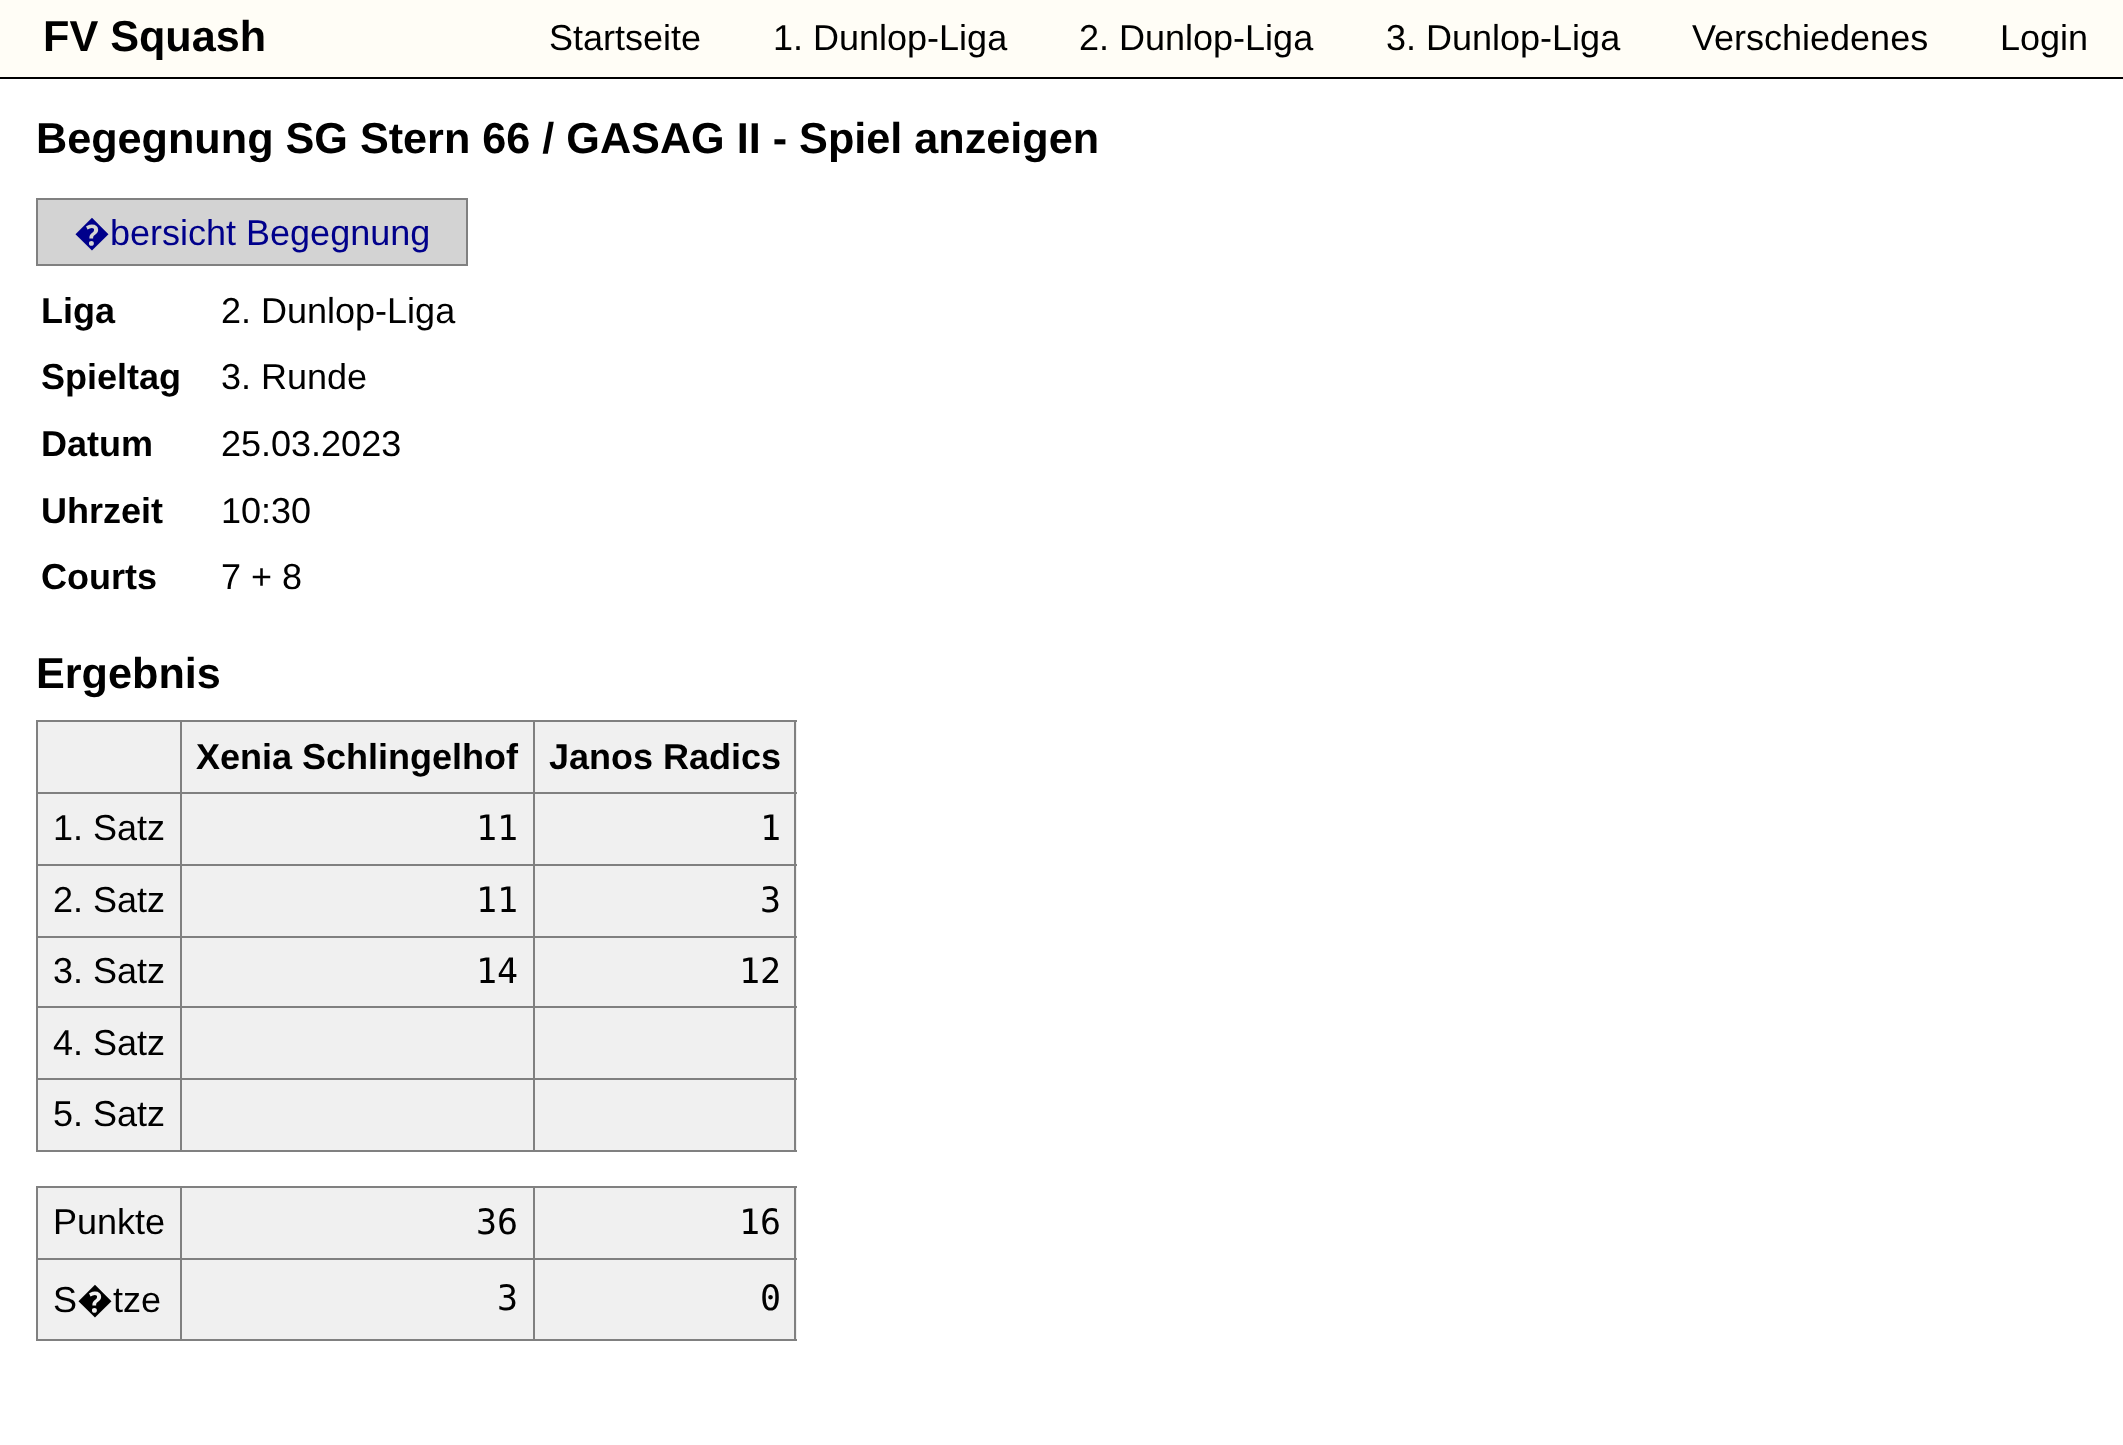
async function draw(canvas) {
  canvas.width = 2123
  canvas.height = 1445
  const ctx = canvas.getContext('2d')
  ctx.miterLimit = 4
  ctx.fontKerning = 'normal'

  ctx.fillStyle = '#fff'
  ctx.fillRect(0, 0, 2123, 1445)
  ctx.fillStyle = '#fffdf6'
  ctx.fillRect(0, 0, 2123, 77)
  ctx.fillStyle = '#000'
  ctx.fillRect(0, 77, 2123, 2)
  ctx.font = 'bold 43.2px Liberation Sans'
  ctx.fillText('FV Squash', 43, 51)
  ctx.font = '36px Liberation Sans'
  ctx.fillText('Startseite', 549, 50)
  ctx.fillText('1. Dunlop-Liga', 773, 50)
  ctx.fillText('2. Dunlop-Liga', 1079, 50)
  ctx.fillText('3. Dunlop-Liga', 1386, 50)
  ctx.fillText('Verschiedenes', 1692, 50)
  ctx.fillText('Login', 2000, 50)
  ctx.font = 'bold 43.2px Liberation Sans'
  ctx.fillText('Begegnung SG Stern 66 / GASAG II - Spiel anzeigen', 36, 153)
  ctx.fillStyle = '#d3d3d3'
  ctx.beginPath()
  ctx.rect(37, 199, 430, 66)
  ctx.fill()
  ctx.strokeStyle = '#808080'
  ctx.lineWidth = 2
  ctx.stroke()
  ctx.font = '36px Noto Sans'
  ctx.fillStyle = '#00008b'
  ctx.fillText('�', 74, 245)
  ctx.font = '36px Liberation Sans'
  ctx.fillText('bersicht Begegnung', 110, 245)
  ctx.font = 'bold 36px Liberation Sans'
  ctx.fillStyle = '#000'
  ctx.fillText('Liga', 41, 323)
  ctx.font = '36px Liberation Sans'
  ctx.fillText('2. Dunlop-Liga', 221, 323)
  ctx.font = 'bold 36px Liberation Sans'
  ctx.fillText('Spieltag', 41, 389)
  ctx.font = '36px Liberation Sans'
  ctx.fillText('3. Runde', 221, 389)
  ctx.font = 'bold 36px Liberation Sans'
  ctx.fillText('Datum', 41, 456)
  ctx.font = '36px Liberation Sans'
  ctx.fillText('25.03.2023', 221, 456)
  ctx.font = 'bold 36px Liberation Sans'
  ctx.fillText('Uhrzeit', 41, 523)
  ctx.font = '36px Liberation Sans'
  ctx.fillText('10:30', 221, 523)
  ctx.font = 'bold 36px Liberation Sans'
  ctx.fillText('Courts', 41, 589)
  ctx.font = '36px Liberation Sans'
  ctx.fillText('7 + 8', 221, 589)
  ctx.font = 'bold 43.2px Liberation Sans'
  ctx.fillText('Ergebnis', 36, 688)
  ctx.fillStyle = '#f0f0f0'
  ctx.fillRect(38, 722, 142, 70)
  ctx.fillStyle = '#808080'
  ctx.fillRect(533, 720, 264, 2)
  ctx.fillRect(533, 792, 264, 2)
  ctx.fillRect(533, 864, 264, 2)
  ctx.fillRect(533, 936, 264, 2)
  ctx.fillRect(533, 1006, 264, 2)
  ctx.fillRect(533, 1078, 264, 2)
  ctx.fillStyle = '#f0f0f0'
  ctx.fillRect(535, 1080, 262, 70)
  ctx.fillStyle = '#808080'
  ctx.fillRect(794, 1078, 2, 74)
  ctx.fillRect(533, 1150, 264, 2)
  ctx.fillRect(533, 1078, 2, 74)
  ctx.fillRect(180, 1078, 356, 2)
  ctx.fillRect(533, 1006, 2, 74)
  ctx.fillRect(180, 1006, 356, 2)
  ctx.fillRect(533, 936, 2, 72)
  ctx.fillRect(180, 936, 356, 2)
  ctx.fillRect(533, 864, 2, 74)
  ctx.fillRect(180, 864, 356, 2)
  ctx.fillRect(533, 792, 2, 74)
  ctx.fillRect(180, 792, 356, 2)
  ctx.fillRect(533, 720, 2, 74)
  ctx.fillRect(180, 720, 356, 2)
  ctx.fillRect(180, 1150, 356, 2)
  ctx.fillRect(180, 1078, 2, 74)
  ctx.fillRect(36, 1078, 146, 2)
  ctx.fillRect(180, 1006, 2, 74)
  ctx.fillRect(36, 1006, 146, 2)
  ctx.fillRect(180, 936, 2, 72)
  ctx.fillRect(36, 936, 146, 2)
  ctx.fillRect(180, 864, 2, 74)
  ctx.fillRect(36, 864, 146, 2)
  ctx.fillRect(180, 792, 2, 74)
  ctx.fillRect(36, 792, 146, 2)
  ctx.fillRect(180, 720, 2, 74)
  ctx.fillRect(36, 720, 146, 2)
  ctx.fillRect(36, 1150, 146, 2)
  ctx.fillRect(36, 1078, 2, 74)
  ctx.fillRect(36, 1006, 2, 74)
  ctx.fillRect(36, 936, 2, 72)
  ctx.fillRect(36, 864, 2, 74)
  ctx.fillRect(36, 792, 2, 74)
  ctx.fillRect(36, 720, 2, 74)
  ctx.fillStyle = '#f0f0f0'
  ctx.fillRect(182, 722, 351, 70)
  ctx.font = 'bold 36px Liberation Sans'
  ctx.fillStyle = '#000'
  ctx.fillText('Xenia Schlingelhof', 196, 769)
  ctx.fillStyle = '#f0f0f0'
  ctx.fillRect(535, 722, 262, 70)
  ctx.fillRect(535, 794, 262, 70)
  ctx.fillRect(535, 866, 262, 70)
  ctx.fillRect(535, 938, 262, 68)
  ctx.fillRect(535, 1008, 262, 70)
  ctx.fillStyle = '#808080'
  ctx.fillRect(794, 1006, 2, 74)
  ctx.fillRect(794, 936, 2, 72)
  ctx.fillRect(794, 864, 2, 74)
  ctx.fillRect(794, 792, 2, 74)
  ctx.fillRect(794, 720, 2, 74)
  ctx.fillStyle = '#000'
  ctx.fillText('Janos Radics', 549, 769)
  ctx.fillStyle = '#f0f0f0'
  ctx.fillRect(38, 794, 142, 70)
  ctx.font = '36px Liberation Sans'
  ctx.fillStyle = '#000'
  ctx.fillText('1. Satz', 53, 840)
  ctx.fillStyle = '#f0f0f0'
  ctx.fillRect(182, 794, 351, 70)
  ctx.font = '35px DejaVu Sans Mono'
  ctx.fillStyle = '#000'
  ctx.fillText('11', 476, 840)
  ctx.fillText('1', 760, 840)
  ctx.fillStyle = '#f0f0f0'
  ctx.fillRect(38, 866, 142, 70)
  ctx.font = '36px Liberation Sans'
  ctx.fillStyle = '#000'
  ctx.fillText('2. Satz', 53, 912)
  ctx.fillStyle = '#f0f0f0'
  ctx.fillRect(182, 866, 351, 70)
  ctx.font = '35px DejaVu Sans Mono'
  ctx.fillStyle = '#000'
  ctx.fillText('11', 476, 912)
  ctx.fillText('3', 760, 912)
  ctx.fillStyle = '#f0f0f0'
  ctx.fillRect(38, 938, 142, 68)
  ctx.font = '36px Liberation Sans'
  ctx.fillStyle = '#000'
  ctx.fillText('3. Satz', 53, 983)
  ctx.fillStyle = '#f0f0f0'
  ctx.fillRect(182, 938, 351, 68)
  ctx.font = '35px DejaVu Sans Mono'
  ctx.fillStyle = '#000'
  ctx.fillText('14', 476, 983)
  ctx.fillText('12', 739, 983)
  ctx.fillStyle = '#f0f0f0'
  ctx.fillRect(38, 1008, 142, 70)
  ctx.font = '36px Liberation Sans'
  ctx.fillStyle = '#000'
  ctx.fillText('4. Satz', 53, 1055)
  ctx.fillStyle = '#f0f0f0'
  ctx.fillRect(182, 1008, 351, 70)
  ctx.fillRect(38, 1080, 142, 70)
  ctx.fillStyle = '#000'
  ctx.fillText('5. Satz', 53, 1126)
  ctx.fillStyle = '#f0f0f0'
  ctx.fillRect(182, 1080, 351, 70)
  ctx.fillRect(38, 1188, 142, 70)
  ctx.fillStyle = '#808080'
  ctx.fillRect(533, 1186, 264, 2)
  ctx.fillRect(533, 1258, 264, 2)
  ctx.fillStyle = '#f0f0f0'
  ctx.fillRect(535, 1260, 262, 79)
  ctx.fillStyle = '#808080'
  ctx.fillRect(794, 1258, 2, 83)
  ctx.fillRect(533, 1339, 264, 2)
  ctx.fillRect(533, 1258, 2, 83)
  ctx.fillRect(180, 1258, 356, 2)
  ctx.fillRect(533, 1186, 2, 74)
  ctx.fillRect(180, 1186, 356, 2)
  ctx.fillRect(180, 1339, 356, 2)
  ctx.fillRect(180, 1258, 2, 83)
  ctx.fillRect(36, 1258, 146, 2)
  ctx.fillRect(180, 1186, 2, 74)
  ctx.fillRect(36, 1186, 146, 2)
  ctx.fillRect(36, 1339, 146, 2)
  ctx.fillRect(36, 1258, 2, 83)
  ctx.fillRect(36, 1186, 2, 74)
  ctx.fillStyle = '#000'
  ctx.fillText('Punkte', 53, 1234)
  ctx.fillStyle = '#f0f0f0'
  ctx.fillRect(182, 1188, 351, 70)
  ctx.font = '35px DejaVu Sans Mono'
  ctx.fillStyle = '#000'
  ctx.fillText('36', 476, 1234)
  ctx.fillStyle = '#f0f0f0'
  ctx.fillRect(535, 1188, 262, 70)
  ctx.fillStyle = '#808080'
  ctx.fillRect(794, 1186, 2, 74)
  ctx.fillStyle = '#000'
  ctx.fillText('16', 739, 1234)
  ctx.fillStyle = '#f0f0f0'
  ctx.fillRect(38, 1260, 142, 79)
  ctx.font = '36px Liberation Sans'
  ctx.fillStyle = '#000'
  ctx.fillText('S', 53, 1312)
  ctx.font = '36px Noto Sans'
  ctx.fillText('�', 77, 1312)
  ctx.font = '36px Liberation Sans'
  ctx.fillText('tze', 113, 1312)
  ctx.fillStyle = '#f0f0f0'
  ctx.fillRect(182, 1260, 351, 79)
  ctx.font = '35px DejaVu Sans Mono'
  ctx.fillStyle = '#000'
  ctx.fillText('3', 497, 1310)
  ctx.fillText('0', 760, 1310)
}

draw(document.querySelector('canvas'))
